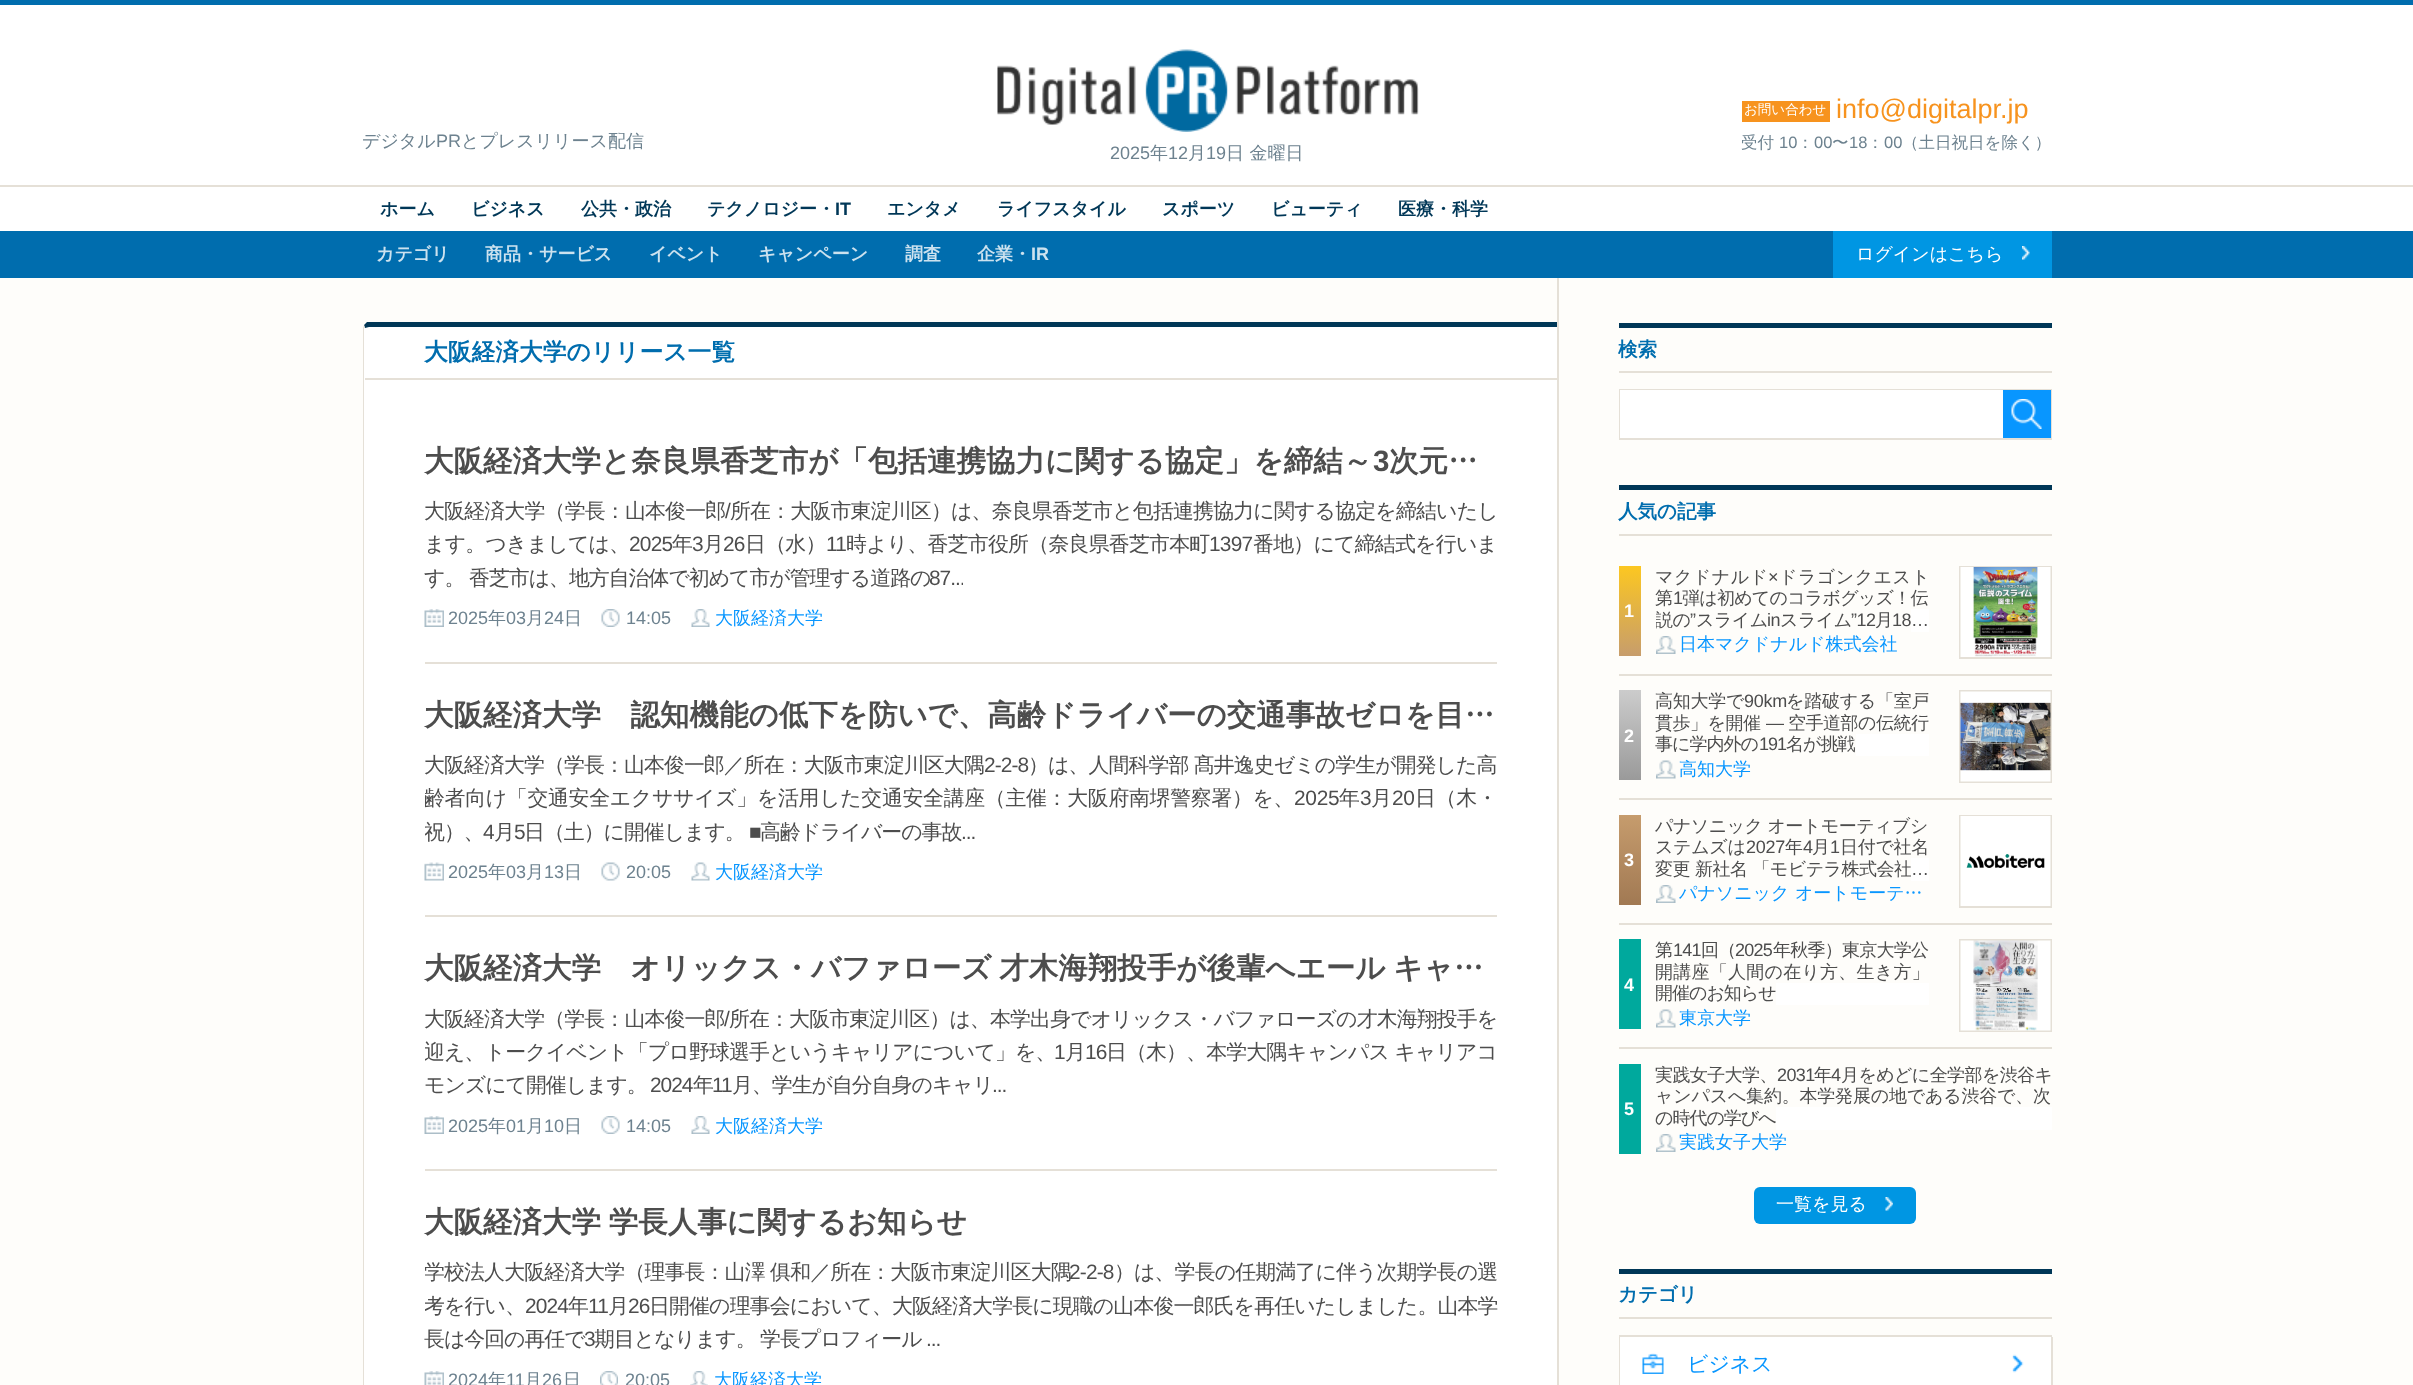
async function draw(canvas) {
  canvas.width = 2413
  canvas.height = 1385
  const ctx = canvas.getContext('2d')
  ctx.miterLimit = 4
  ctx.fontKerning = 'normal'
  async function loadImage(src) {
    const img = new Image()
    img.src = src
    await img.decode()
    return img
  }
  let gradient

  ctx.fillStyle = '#fff'
  ctx.fillRect(0, 0, 2413, 1385)
  ctx.fillStyle = '#006dae'
  ctx.fillRect(0, 0, 2413, 5)
  ctx.font = '500 18px WenQuanYi Zen Hei'
  ctx.fillStyle = '#6d828f'
  ctx.fillText('デジタル', 362, 147)
  ctx.font = '18px Liberation Sans'
  ctx.fillText('PR', 436, 147)
  ctx.font = '500 18px WenQuanYi Zen Hei'
  ctx.fillText('とプレスリリース配信', 461, 147)
  ctx.fillStyle = '#f7931e'
  ctx.fillRect(1742, 101, 88, 21)
  ctx.font = '500 13.5px WenQuanYi Zen Hei'
  ctx.fillStyle = '#fff'
  ctx.fillText('お問い合わせ', 1744, 114)
  ctx.font = '27px Liberation Sans'
  ctx.fillStyle = '#f7931e'
  ctx.fillText('info@digitalpr.jp', 1836, 118)
  ctx.font = '500 16.5px WenQuanYi Zen Hei'
  ctx.fillStyle = '#6d828f'
  ctx.fillText('受付', 1741, 148)
  ctx.font = '16.5px Liberation Sans'
  ctx.fillText('10', 1779, 148)
  ctx.font = '500 16.5px WenQuanYi Zen Hei'
  ctx.fillText('：', 1797, 148)
  ctx.font = '16.5px Liberation Sans'
  ctx.fillText('00', 1814, 148)
  ctx.font = '500 16.5px WenQuanYi Zen Hei'
  ctx.fillText('〜', 1832, 148)
  ctx.font = '16.5px Liberation Sans'
  ctx.fillText('18', 1849, 148)
  ctx.font = '500 16.5px WenQuanYi Zen Hei'
  ctx.fillText('：', 1867, 148)
  ctx.font = '16.5px Liberation Sans'
  ctx.fillText('00', 1884, 148)
  ctx.font = '500 16.5px WenQuanYi Zen Hei'
  ctx.fillText('（土日祝日を除く）', 1902, 148)
  ctx.drawImage(await loadImage('image0.png'), 997, 49, 422, 83)
  ctx.font = '18px Liberation Sans'
  ctx.fillText('2025', 1110, 159)
  ctx.font = '500 18px WenQuanYi Zen Hei'
  ctx.fillText('年', 1150, 159)
  ctx.font = '18px Liberation Sans'
  ctx.fillText('12', 1168, 159)
  ctx.font = '500 18px WenQuanYi Zen Hei'
  ctx.fillText('月', 1188, 159)
  ctx.font = '18px Liberation Sans'
  ctx.fillText('19', 1206, 159)
  ctx.font = '500 18px WenQuanYi Zen Hei'
  ctx.fillText('日 金曜日', 1226, 159)
  ctx.fillStyle = '#006dae'
  ctx.fillRect(0, 231, 2413, 47)
  ctx.fillStyle = '#e5e0d7'
  ctx.fillRect(0, 185, 2413, 2)
  ctx.font = 'bold 18px WenQuanYi Zen Hei'
  ctx.fillStyle = '#003757'
  ctx.fillText('ホーム', 380, 215)
  ctx.fillText('ビジネス', 471, 215)
  ctx.fillText('公共・政治', 581, 215)
  ctx.fillText('テクノロジー・', 707, 215)
  ctx.font = 'bold 18px Liberation Sans'
  ctx.fillText('IT', 835, 215)
  ctx.font = 'bold 18px WenQuanYi Zen Hei'
  ctx.fillText('エンタメ', 887, 215)
  ctx.fillText('ライフスタイル', 997, 215)
  ctx.fillText('スポーツ', 1162, 215)
  ctx.fillText('ビューティ', 1271, 215)
  ctx.fillText('医療・科学', 1398, 215)
  ctx.fillStyle = '#cce2ef'
  ctx.fillText('カテゴリ', 376, 260)
  ctx.fillText('商品・サービス', 485, 260)
  ctx.fillText('イベント', 649, 260)
  ctx.fillText('キャンペーン', 758, 260)
  ctx.fillText('調査', 905, 260)
  ctx.fillText('企業・', 977, 260)
  ctx.font = 'bold 18px Liberation Sans'
  ctx.fillText('IR', 1031, 260)
  ctx.fillStyle = '#0096e3'
  ctx.fillRect(1833, 231, 219, 47)
  ctx.font = '500 18px WenQuanYi Zen Hei'
  ctx.fillStyle = '#fff'
  ctx.fillText('ログインはこちら', 1856, 260)
  ctx.drawImage(await loadImage('image1.png'), 2022, 246, 8, 14)
  ctx.fillStyle = '#fefdfa'
  ctx.fillRect(0, 278, 2413, 1107)
  ctx.fillStyle = '#fff'
  ctx.beginPath()
  ctx.moveTo(369, 323)
  ctx.lineTo(1557, 323)
  ctx.lineTo(1557, 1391)
  ctx.lineTo(369, 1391)
  ctx.bezierCurveTo(365.5, 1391, 363, 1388.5, 363, 1385)
  ctx.lineTo(363, 329)
  ctx.bezierCurveTo(363, 325.5, 365.5, 323, 369, 323)
  ctx.closePath()
  ctx.fill()
  ctx.fillStyle = '#003757'
  ctx.beginPath()
  ctx.moveTo(369, 327)
  ctx.lineTo(365, 328)
  ctx.lineTo(364, 325)
  ctx.lineTo(367, 322)
  ctx.lineTo(1557, 322)
  ctx.lineTo(1557, 327)
  ctx.closePath()
  ctx.fill()
  ctx.fillStyle = '#e5e0d7'
  ctx.beginPath()
  ctx.moveTo(363, 328)
  ctx.lineTo(363, 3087)
  ctx.bezierCurveTo(363, 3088, 364, 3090, 365, 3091)
  ctx.lineTo(366, 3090)
  ctx.lineTo(364, 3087)
  ctx.lineTo(364, 328)
  ctx.lineTo(365, 328)
  ctx.lineTo(364, 325)
  ctx.closePath()
  ctx.fill()
  ctx.fillRect(365, 378, 1192, 2)
  ctx.font = 'bold 23.75px WenQuanYi Zen Hei'
  ctx.fillStyle = '#006dae'
  ctx.fillText('大阪経済大学のリリース一覧', 424, 360)
  ctx.font = 'bold 29.5px WenQuanYi Zen Hei'
  ctx.fillStyle = '#4d4d4d'
  ctx.fillText('大阪経済大学と奈良県香芝市が「包括連携協力に関する協定」を締結～', 424, 471)
  ctx.font = 'bold 29.5px Liberation Sans'
  ctx.fillText('3', 1373, 471)
  ctx.font = 'bold 29.5px WenQuanYi Zen Hei'
  ctx.fillText('次元…', 1389, 471)
  ctx.letterSpacing = '-0.8px'
  ctx.font = '500 20.9px WenQuanYi Zen Hei'
  ctx.fillText('大阪経済大学（学長：山本俊一郎', 424, 518)
  ctx.font = '20.9px Liberation Sans'
  ctx.fillText('/', 725, 518)
  ctx.font = '500 20.9px WenQuanYi Zen Hei'
  ctx.fillText('所在：大阪市東淀川区）は、奈良県香芝市と包括連携協力に関する協定を締結いたし', 730, 518)
  ctx.letterSpacing = '-0.75px'
  ctx.fillText('ます。つきましては、', 424, 551)
  ctx.font = '20.9px Liberation Sans'
  ctx.fillText('2025', 629, 551)
  ctx.font = '500 20.9px WenQuanYi Zen Hei'
  ctx.fillText('年', 672, 551)
  ctx.font = '20.9px Liberation Sans'
  ctx.fillText('3', 692, 551)
  ctx.font = '500 20.9px WenQuanYi Zen Hei'
  ctx.fillText('月', 703, 551)
  ctx.font = '20.9px Liberation Sans'
  ctx.fillText('26', 723, 551)
  ctx.font = '500 20.9px WenQuanYi Zen Hei'
  ctx.fillText('日（水）', 745, 551)
  ctx.font = '20.9px Liberation Sans'
  ctx.fillText('11', 826, 551)
  ctx.font = '500 20.9px WenQuanYi Zen Hei'
  ctx.fillText('時より、香芝市役所（奈良県香芝市本町', 846, 551)
  ctx.font = '20.9px Liberation Sans'
  ctx.fillText('1397', 1209, 551)
  ctx.font = '500 20.9px WenQuanYi Zen Hei'
  ctx.fillText('番地）にて締結式を行いま', 1253, 551)
  ctx.letterSpacing = '-1px'
  ctx.fillText('す。', 424, 585)
  ctx.fillText('香芝市は、地方自治体で初めて市が管理する道路の', 469, 585)
  ctx.font = '20.9px Liberation Sans'
  ctx.fillText('87...', 929, 585)
  ctx.fillStyle = '#fff'
  ctx.fillRect(963, 582, 1, 3)
  ctx.drawImage(await loadImage('image2.png'), 424, 609, 20, 18)
  ctx.letterSpacing = '0px'
  ctx.font = '18px Liberation Sans'
  ctx.fillStyle = '#6d828f'
  ctx.fillText('2025', 448, 624)
  ctx.font = '500 18px WenQuanYi Zen Hei'
  ctx.fillText('年', 488, 624)
  ctx.font = '18px Liberation Sans'
  ctx.fillText('03', 506, 624)
  ctx.font = '500 18px WenQuanYi Zen Hei'
  ctx.fillText('月', 526, 624)
  ctx.font = '18px Liberation Sans'
  ctx.fillText('24', 544, 624)
  ctx.font = '500 18px WenQuanYi Zen Hei'
  ctx.fillText('日', 564, 624)
  ctx.drawImage(await loadImage('image3.png'), 601, 609, 19, 18)
  ctx.font = '18px Liberation Sans'
  ctx.fillText('14:05', 626, 624)
  ctx.drawImage(await loadImage('image4.png'), 691, 609, 19, 18)
  ctx.font = '500 18px WenQuanYi Zen Hei'
  ctx.fillStyle = '#0896ff'
  ctx.fillText('大阪経済大学', 715, 624)
  ctx.fillStyle = '#e5e0d7'
  ctx.fillRect(425, 662, 1072, 2)
  ctx.font = 'bold 29.5px WenQuanYi Zen Hei'
  ctx.fillStyle = '#4d4d4d'
  ctx.fillText('大阪経済大学　認知機能の低下を防いで、高齢ドライバーの交通事故ゼロを目…', 424, 725)
  ctx.letterSpacing = '-0.9px'
  ctx.font = '500 20.9px WenQuanYi Zen Hei'
  ctx.fillText('大阪経済大学（学長：山本俊一郎／所在：大阪市東淀川区大隅', 424, 772)
  ctx.font = '20.9px Liberation Sans'
  ctx.fillText('2-2-8', 984, 772)
  ctx.font = '500 20.9px WenQuanYi Zen Hei'
  ctx.fillText('）は、人間科学部 髙井逸史ゼミの学生が開発した高', 1028, 772)
  ctx.save()
  ctx.beginPath()
  ctx.rect(425, 747, 1072, 101)
  ctx.clip()
  ctx.letterSpacing = '-0.3px'
  ctx.fillText('齢者向け「交通安全エクササイズ」を活用した交通安全講座（主催：大阪府南堺警察署）を、', 424, 805)
  ctx.restore()
  ctx.letterSpacing = '-0.3px'
  ctx.font = '20.9px Liberation Sans'
  ctx.fillText('2025', 1294, 805)
  ctx.font = '500 20.9px WenQuanYi Zen Hei'
  ctx.fillText('年', 1339, 805)
  ctx.font = '20.9px Liberation Sans'
  ctx.fillText('3', 1360, 805)
  ctx.font = '500 20.9px WenQuanYi Zen Hei'
  ctx.fillText('月', 1371, 805)
  ctx.font = '20.9px Liberation Sans'
  ctx.fillText('20', 1392, 805)
  ctx.font = '500 20.9px WenQuanYi Zen Hei'
  ctx.fillText('日（木・', 1415, 805)
  ctx.save()
  ctx.beginPath()
  ctx.rect(425, 747, 1072, 101)
  ctx.clip()
  ctx.letterSpacing = '-1px'
  ctx.fillText('祝）、', 424, 839)
  ctx.restore()
  ctx.letterSpacing = '-1px'
  ctx.font = '20.9px Liberation Sans'
  ctx.fillText('4', 483, 839)
  ctx.font = '500 20.9px WenQuanYi Zen Hei'
  ctx.fillText('月', 494, 839)
  ctx.font = '20.9px Liberation Sans'
  ctx.fillText('5', 514, 839)
  ctx.font = '500 20.9px WenQuanYi Zen Hei'
  ctx.fillText('日（土）に開催します。', 524, 839)
  ctx.font = '20.9px Liberation Sans'
  ctx.fillText('■', 749, 839)
  ctx.font = '500 20.9px WenQuanYi Zen Hei'
  ctx.fillText('高齢ドライバーの事故', 760, 839)
  ctx.font = '20.9px Liberation Sans'
  ctx.fillText('...', 961, 839)
  ctx.drawImage(await loadImage('image5.png'), 424, 862, 20, 19)
  ctx.letterSpacing = '0px'
  ctx.font = '18px Liberation Sans'
  ctx.fillStyle = '#6d828f'
  ctx.fillText('2025', 448, 878)
  ctx.font = '500 18px WenQuanYi Zen Hei'
  ctx.fillText('年', 488, 878)
  ctx.font = '18px Liberation Sans'
  ctx.fillText('03', 506, 878)
  ctx.font = '500 18px WenQuanYi Zen Hei'
  ctx.fillText('月', 526, 878)
  ctx.font = '18px Liberation Sans'
  ctx.fillText('13', 544, 878)
  ctx.font = '500 18px WenQuanYi Zen Hei'
  ctx.fillText('日', 564, 878)
  ctx.drawImage(await loadImage('image6.png'), 601, 862, 19, 19)
  ctx.font = '18px Liberation Sans'
  ctx.fillText('20:05', 626, 878)
  ctx.drawImage(await loadImage('image7.png'), 691, 862, 19, 19)
  ctx.font = '500 18px WenQuanYi Zen Hei'
  ctx.fillStyle = '#0896ff'
  ctx.fillText('大阪経済大学', 715, 878)
  ctx.fillStyle = '#e5e0d7'
  ctx.fillRect(425, 915, 1072, 2)
  ctx.wordSpacing = '-1px'
  ctx.font = 'bold 29.5px WenQuanYi Zen Hei'
  ctx.fillStyle = '#4d4d4d'
  ctx.fillText('大阪経済大学　オリックス・バファローズ 才木海翔投手が後輩へエール キャ…', 424, 978)
  ctx.letterSpacing = '-0.85px'
  ctx.wordSpacing = '0px'
  ctx.font = '500 20.9px WenQuanYi Zen Hei'
  ctx.fillText('大阪経済大学（学長：山本俊一郎', 424, 1026)
  ctx.font = '20.9px Liberation Sans'
  ctx.fillText('/', 724, 1026)
  ctx.font = '500 20.9px WenQuanYi Zen Hei'
  ctx.fillText('所在：大阪市東淀川区）は、本学出身でオリックス・バファローズの才木海翔投手を', 729, 1026)
  ctx.save()
  ctx.beginPath()
  ctx.rect(425, 1002, 1072, 101)
  ctx.clip()
  ctx.fillText('迎え、トークイベント「プロ野球選手というキャリアについて」を、', 424, 1059)
  ctx.restore()
  ctx.font = '20.9px Liberation Sans'
  ctx.fillText('1', 1054, 1059)
  ctx.font = '500 20.9px WenQuanYi Zen Hei'
  ctx.fillText('月', 1065, 1059)
  ctx.font = '20.9px Liberation Sans'
  ctx.fillText('16', 1085, 1059)
  ctx.font = '500 20.9px WenQuanYi Zen Hei'
  ctx.fillText('日（木）、本学大隅キャンパス キャリアコ', 1106, 1059)
  ctx.letterSpacing = '-1px'
  ctx.fillText('モンズにて開催します。', 424, 1092)
  ctx.font = '20.9px Liberation Sans'
  ctx.fillText('2024', 650, 1092)
  ctx.font = '500 20.9px WenQuanYi Zen Hei'
  ctx.fillText('年', 693, 1092)
  ctx.font = '20.9px Liberation Sans'
  ctx.fillText('11', 712, 1092)
  ctx.font = '500 20.9px WenQuanYi Zen Hei'
  ctx.fillText('月、学生が自分自身のキャリ', 732, 1092)
  ctx.font = '20.9px Liberation Sans'
  ctx.fillText('...', 992, 1092)
  ctx.drawImage(await loadImage('image2.png'), 424, 1116, 20, 18)
  ctx.letterSpacing = '0px'
  ctx.font = '18px Liberation Sans'
  ctx.fillStyle = '#6d828f'
  ctx.fillText('2025', 448, 1132)
  ctx.font = '500 18px WenQuanYi Zen Hei'
  ctx.fillText('年', 488, 1132)
  ctx.font = '18px Liberation Sans'
  ctx.fillText('01', 506, 1132)
  ctx.font = '500 18px WenQuanYi Zen Hei'
  ctx.fillText('月', 526, 1132)
  ctx.font = '18px Liberation Sans'
  ctx.fillText('10', 544, 1132)
  ctx.font = '500 18px WenQuanYi Zen Hei'
  ctx.fillText('日', 564, 1132)
  ctx.drawImage(await loadImage('image3.png'), 601, 1116, 19, 18)
  ctx.font = '18px Liberation Sans'
  ctx.fillText('14:05', 626, 1132)
  ctx.drawImage(await loadImage('image4.png'), 691, 1116, 19, 18)
  ctx.font = '500 18px WenQuanYi Zen Hei'
  ctx.fillStyle = '#0896ff'
  ctx.fillText('大阪経済大学', 715, 1132)
  ctx.fillStyle = '#e5e0d7'
  ctx.fillRect(425, 1169, 1072, 2)
  ctx.wordSpacing = '-1px'
  ctx.font = 'bold 29.5px WenQuanYi Zen Hei'
  ctx.fillStyle = '#4d4d4d'
  ctx.fillText('大阪経済大学 学長人事に関するお知らせ', 424, 1232)
  ctx.save()
  ctx.beginPath()
  ctx.rect(425, 1256, 1072, 100)
  ctx.clip()
  ctx.letterSpacing = '-0.85px'
  ctx.wordSpacing = '0px'
  ctx.font = '500 20.9px WenQuanYi Zen Hei'
  ctx.fillText('学校法人大阪経済大学（理事長：山澤 俱和／所在：大阪市東淀川区大隅', 424, 1279)
  ctx.restore()
  ctx.letterSpacing = '-0.85px'
  ctx.wordSpacing = '0px'
  ctx.font = '20.9px Liberation Sans'
  ctx.fillText('2-2-8', 1069, 1279)
  ctx.font = '500 20.9px WenQuanYi Zen Hei'
  ctx.fillText('）は、学⾧の任期満了に伴う次期学⾧の選', 1114, 1279)
  ctx.save()
  ctx.beginPath()
  ctx.rect(425, 1256, 1072, 100)
  ctx.clip()
  ctx.fillText('考を行い、', 424, 1313)
  ctx.restore()
  ctx.font = '20.9px Liberation Sans'
  ctx.fillText('2024', 525, 1313)
  ctx.font = '500 20.9px WenQuanYi Zen Hei'
  ctx.fillText('年', 568, 1313)
  ctx.font = '20.9px Liberation Sans'
  ctx.fillText('11', 588, 1313)
  ctx.font = '500 20.9px WenQuanYi Zen Hei'
  ctx.fillText('月', 608, 1313)
  ctx.font = '20.9px Liberation Sans'
  ctx.fillText('26', 628, 1313)
  ctx.font = '500 20.9px WenQuanYi Zen Hei'
  ctx.fillText('日開催の理事会において、大阪経済大学長に現職の山本俊一郎氏を再任いたしました。山本学', 649, 1313)
  ctx.letterSpacing = '-1px'
  ctx.fillText('長は今回の再任で', 424, 1346)
  ctx.font = '20.9px Liberation Sans'
  ctx.fillText('3', 584, 1346)
  ctx.font = '500 20.9px WenQuanYi Zen Hei'
  ctx.fillText('期目となります。', 594, 1346)
  ctx.fillText('学長プロフィール', 760, 1346)
  ctx.font = '20.9px Liberation Sans'
  ctx.fillText('...', 926, 1346)
  ctx.drawImage(await loadImage('image8.png'), 424, 1371, 20, 14)
  ctx.letterSpacing = '0px'
  ctx.font = '18px Liberation Sans'
  ctx.fillStyle = '#6d828f'
  ctx.fillText('2024', 448, 1386)
  ctx.font = '500 18px WenQuanYi Zen Hei'
  ctx.fillText('年', 488, 1386)
  ctx.font = '18px Liberation Sans'
  ctx.fillText('11', 506, 1386)
  ctx.font = '500 18px WenQuanYi Zen Hei'
  ctx.fillText('月', 524, 1386)
  ctx.font = '18px Liberation Sans'
  ctx.fillText('26', 542, 1386)
  ctx.font = '500 18px WenQuanYi Zen Hei'
  ctx.fillText('日', 563, 1386)
  ctx.drawImage(await loadImage('image9.png'), 600, 1371, 18, 14)
  ctx.font = '18px Liberation Sans'
  ctx.fillText('20:05', 625, 1386)
  ctx.drawImage(await loadImage('image10.png'), 690, 1371, 18, 14)
  ctx.font = '500 18px WenQuanYi Zen Hei'
  ctx.fillStyle = '#0896ff'
  ctx.fillText('大阪経済大学', 714, 1386)
  ctx.fillStyle = '#e5e0d7'
  ctx.fillRect(1557, 278, 2, 1107)
  ctx.fillStyle = '#003757'
  ctx.fillRect(1619, 323, 433, 5)
  ctx.fillStyle = '#e5e0d7'
  ctx.fillRect(1619, 371, 433, 2)
  ctx.font = 'bold 19.5px WenQuanYi Zen Hei'
  ctx.fillStyle = '#006dae'
  ctx.fillText('検索', 1618, 356)
  ctx.strokeStyle = '#e5e0d7'
  ctx.lineWidth = 2
  ctx.strokeRect(1620, 390, 431, 49)
  ctx.fillStyle = '#fff'
  ctx.fillRect(1620, 390, 383, 48)
  ctx.fillStyle = '#0896ff'
  ctx.fillRect(2003, 390, 48, 48)
  ctx.drawImage(await loadImage('image11.png'), 2011, 399, 31, 30)
  ctx.fillStyle = '#003757'
  ctx.fillRect(1619, 485, 433, 5)
  ctx.fillStyle = '#e5e0d7'
  ctx.fillRect(1619, 534, 433, 2)
  ctx.fillStyle = '#006dae'
  ctx.fillText('人気の記事', 1618, 518)
  gradient = ctx.createLinearGradient(1630, 566, 1630, 656)
  gradient.addColorStop(0, '#fcc721')
  gradient.addColorStop(1, '#c79d6c')
  ctx.fillStyle = gradient
  ctx.fillRect(1619, 566, 22, 90)
  ctx.font = 'bold 18px Liberation Sans'
  ctx.fillStyle = '#fff'
  ctx.fillText('1', 1624, 617)
  ctx.letterSpacing = '0.5px'
  ctx.font = '500 18px WenQuanYi Zen Hei'
  ctx.fillStyle = '#4d4d4d'
  ctx.fillText('マクドナルド', 1655, 583)
  ctx.font = '18px Liberation Sans'
  ctx.fillText('×', 1768, 583)
  ctx.font = '500 18px WenQuanYi Zen Hei'
  ctx.fillText('ドラゴンクエスト', 1779, 583)
  ctx.letterSpacing = '-0.75px'
  ctx.fillText('第', 1655, 604)
  ctx.font = '18px Liberation Sans'
  ctx.fillText('1', 1673, 604)
  ctx.font = '500 18px WenQuanYi Zen Hei'
  ctx.fillText('弾は初めてのコラボグッズ！伝', 1682, 604)
  ctx.save()
  ctx.beginPath()
  ctx.rect(1656, 566, 273, 66)
  ctx.clip()
  ctx.letterSpacing = '-0.5px'
  ctx.fillText('説の', 1655, 626)
  ctx.restore()
  ctx.letterSpacing = '-0.5px'
  ctx.font = '18px Liberation Sans'
  ctx.fillText('”', 1690, 626)
  ctx.font = '500 18px WenQuanYi Zen Hei'
  ctx.fillText('スライム', 1696, 626)
  ctx.font = '18px Liberation Sans'
  ctx.fillText('in', 1767, 626)
  ctx.font = '500 18px WenQuanYi Zen Hei'
  ctx.fillText('スライム', 1780, 626)
  ctx.font = '18px Liberation Sans'
  ctx.fillText('”12', 1851, 626)
  ctx.font = '500 18px WenQuanYi Zen Hei'
  ctx.fillText('月', 1875, 626)
  ctx.font = '18px Liberation Sans'
  ctx.fillText('18', 1892, 626)
  ctx.fillStyle = '#fff'
  ctx.fillRect(1911, 609, 18, 23)
  ctx.letterSpacing = '-1px'
  ctx.fillStyle = '#4d4d4d'
  ctx.fillText('…', 1911, 626)
  ctx.strokeRect(1960, 567, 91, 91)
  ctx.drawImage(await loadImage('image12.png'), 1960, 567, 91, 90)
  ctx.drawImage(await loadImage('image13.png'), 1656, 636, 20, 18)
  ctx.letterSpacing = '0px'
  ctx.font = '500 18px WenQuanYi Zen Hei'
  ctx.fillStyle = '#0896ff'
  ctx.fillText('日本マクドナルド株式会社', 1679, 650)
  ctx.fillStyle = '#e5e0d7'
  ctx.fillRect(1619, 674, 433, 2)
  gradient = ctx.createLinearGradient(1630, 690, 1630, 780)
  gradient.addColorStop(0, '#ccc')
  gradient.addColorStop(1, '#9a9a9a')
  ctx.fillStyle = gradient
  ctx.fillRect(1619, 690, 22, 90)
  ctx.font = 'bold 18px Liberation Sans'
  ctx.fillStyle = '#fff'
  ctx.fillText('2', 1624, 742)
  ctx.letterSpacing = '-0.25px'
  ctx.font = '500 18px WenQuanYi Zen Hei'
  ctx.fillStyle = '#4d4d4d'
  ctx.fillText('高知大学で', 1655, 707)
  ctx.font = '18px Liberation Sans'
  ctx.fillText('90km', 1744, 707)
  ctx.font = '500 18px WenQuanYi Zen Hei'
  ctx.fillText('を踏破する「室戸', 1786, 707)
  ctx.letterSpacing = '-0.5px'
  ctx.fillText('貫歩」を開催', 1655, 729)
  ctx.font = '18px Liberation Sans'
  ctx.fillText('―', 1766, 729)
  ctx.font = '500 18px WenQuanYi Zen Hei'
  ctx.fillText('空手道部の伝統行', 1788, 729)
  ctx.letterSpacing = '-1px'
  ctx.fillText('事に学内外の', 1655, 750)
  ctx.font = '18px Liberation Sans'
  ctx.fillText('191', 1759, 750)
  ctx.font = '500 18px WenQuanYi Zen Hei'
  ctx.fillText('名が挑戦', 1786, 750)
  ctx.fillStyle = '#fff'
  ctx.fillRect(1856, 734, 73, 22)
  ctx.strokeRect(1960, 691, 91, 91)
  ctx.drawImage(await loadImage('image14.png'), 1960, 691, 91, 91)
  ctx.drawImage(await loadImage('image15.png'), 1656, 760, 20, 19)
  ctx.letterSpacing = '0px'
  ctx.fillStyle = '#0896ff'
  ctx.fillText('高知大学', 1679, 775)
  ctx.fillStyle = '#e5e0d7'
  ctx.fillRect(1619, 798, 433, 2)
  gradient = ctx.createLinearGradient(1630, 815, 1630, 905)
  gradient.addColorStop(0, '#c69c6d')
  gradient.addColorStop(1, '#a17953')
  ctx.fillStyle = gradient
  ctx.fillRect(1619, 815, 22, 90)
  ctx.font = 'bold 18px Liberation Sans'
  ctx.fillStyle = '#fff'
  ctx.fillText('3', 1624, 866)
  ctx.letterSpacing = '-0.5px'
  ctx.font = '500 18px WenQuanYi Zen Hei'
  ctx.fillStyle = '#4d4d4d'
  ctx.fillText('パナソニック オートモーティブシ', 1655, 832)
  ctx.letterSpacing = '-0.3px'
  ctx.fillText('ステムズは', 1655, 853)
  ctx.font = '18px Liberation Sans'
  ctx.fillText('2027', 1746, 853)
  ctx.font = '500 18px WenQuanYi Zen Hei'
  ctx.fillText('年', 1785, 853)
  ctx.font = '18px Liberation Sans'
  ctx.fillText('4', 1803, 853)
  ctx.font = '500 18px WenQuanYi Zen Hei'
  ctx.fillText('月', 1812, 853)
  ctx.font = '18px Liberation Sans'
  ctx.fillText('1', 1830, 853)
  ctx.font = '500 18px WenQuanYi Zen Hei'
  ctx.fillText('日付で社名', 1840, 853)
  ctx.letterSpacing = '-0.5px'
  ctx.fillText('変更 新社名 「モビテラ株式会社', 1655, 875)
  ctx.fillStyle = '#fff'
  ctx.fillRect(1911, 858, 18, 23)
  ctx.letterSpacing = '-1px'
  ctx.font = '18px Liberation Sans'
  ctx.fillStyle = '#4d4d4d'
  ctx.fillText('…', 1911, 875)
  ctx.strokeRect(1960, 816, 91, 91)
  ctx.drawImage(await loadImage('image16.png'), 1960, 816, 91, 90)
  ctx.drawImage(await loadImage('image13.png'), 1656, 885, 20, 18)
  ctx.letterSpacing = '0px'
  ctx.font = '500 18px WenQuanYi Zen Hei'
  ctx.fillStyle = '#0896ff'
  ctx.fillText('パナソニック オートモーテ…', 1679, 899)
  ctx.fillStyle = '#e5e0d7'
  ctx.fillRect(1619, 923, 433, 2)
  ctx.fillStyle = '#00a99d'
  ctx.fillRect(1619, 939, 22, 90)
  ctx.font = 'bold 18px Liberation Sans'
  ctx.fillStyle = '#fff'
  ctx.fillText('4', 1624, 991)
  ctx.letterSpacing = '-0.75px'
  ctx.font = '500 18px WenQuanYi Zen Hei'
  ctx.fillStyle = '#4d4d4d'
  ctx.fillText('第', 1655, 956)
  ctx.font = '18px Liberation Sans'
  ctx.fillText('141', 1673, 956)
  ctx.font = '500 18px WenQuanYi Zen Hei'
  ctx.fillText('回（', 1701, 956)
  ctx.font = '18px Liberation Sans'
  ctx.fillText('2025', 1735, 956)
  ctx.font = '500 18px WenQuanYi Zen Hei'
  ctx.fillText('年秋季）東京大学公', 1773, 956)
  ctx.letterSpacing = '0.25px'
  ctx.fillText('開講座「人間の在り方、生き方」', 1655, 978)
  ctx.letterSpacing = '-1px'
  ctx.fillText('開催のお知らせ', 1655, 999)
  ctx.fillStyle = '#fff'
  ctx.fillRect(1776, 983, 153, 22)
  ctx.strokeRect(1960, 940, 91, 91)
  ctx.drawImage(await loadImage('image17.png'), 1960, 940, 91, 91)
  ctx.drawImage(await loadImage('image15.png'), 1656, 1009, 20, 19)
  ctx.letterSpacing = '0px'
  ctx.fillStyle = '#0896ff'
  ctx.fillText('東京大学', 1679, 1024)
  ctx.fillStyle = '#e5e0d7'
  ctx.fillRect(1619, 1047, 433, 2)
  ctx.fillStyle = '#00a99d'
  ctx.fillRect(1619, 1064, 22, 90)
  ctx.font = 'bold 18px Liberation Sans'
  ctx.fillStyle = '#fff'
  ctx.fillText('5', 1624, 1115)
  ctx.letterSpacing = '-0.6px'
  ctx.font = '500 18px WenQuanYi Zen Hei'
  ctx.fillStyle = '#4d4d4d'
  ctx.fillText('実践女子大学、', 1655, 1081)
  ctx.font = '18px Liberation Sans'
  ctx.fillText('2031', 1777, 1081)
  ctx.font = '500 18px WenQuanYi Zen Hei'
  ctx.fillText('年', 1814, 1081)
  ctx.font = '18px Liberation Sans'
  ctx.fillText('4', 1831, 1081)
  ctx.font = '500 18px WenQuanYi Zen Hei'
  ctx.fillText('月をめどに全学部を渋谷キ', 1841, 1081)
  ctx.letterSpacing = '-0.2px'
  ctx.fillText('ャンパスへ集約。本学発展の地である渋谷で、次', 1655, 1102)
  ctx.letterSpacing = '-1px'
  ctx.fillText('の時代の学びへ', 1655, 1124)
  ctx.fillStyle = '#fff'
  ctx.fillRect(1776, 1107, 276, 23)
  ctx.drawImage(await loadImage('image13.png'), 1656, 1134, 20, 18)
  ctx.letterSpacing = '0px'
  ctx.fillStyle = '#0896ff'
  ctx.fillText('実践女子大学', 1679, 1148)
  ctx.fillStyle = '#0096e3'
  ctx.beginPath()
  ctx.roundRect(1754, 1187, 162, 37, 6)
  ctx.fill()
  ctx.fillStyle = '#fff'
  ctx.fillText('一覧を見る', 1776, 1210)
  ctx.drawImage(await loadImage('image18.png'), 1885, 1197, 8, 14)
  ctx.fillStyle = '#003757'
  ctx.fillRect(1619, 1269, 433, 5)
  ctx.fillStyle = '#e5e0d7'
  ctx.fillRect(1619, 1317, 433, 2)
  ctx.font = 'bold 19.5px WenQuanYi Zen Hei'
  ctx.fillStyle = '#006dae'
  ctx.fillText('カテゴリ', 1618, 1301)
  ctx.fillStyle = '#e5e0d7'
  ctx.fillRect(1619, 1335, 433, 2)
  ctx.fillRect(2051, 1337, 2, 48)
  ctx.fillRect(1619, 1337, 1, 48)
  ctx.fillStyle = '#fff'
  ctx.fillRect(1620, 1337, 431, 48)
  ctx.drawImage(await loadImage('image19.png'), 1642, 1353, 22, 21)
  ctx.font = '500 20.9px WenQuanYi Zen Hei'
  ctx.fillStyle = '#0896ff'
  ctx.fillText('ビジネス', 1687, 1371)
  ctx.drawImage(await loadImage('image20.png'), 2012, 1354, 12, 19)
}

draw(document.querySelector('canvas'))
